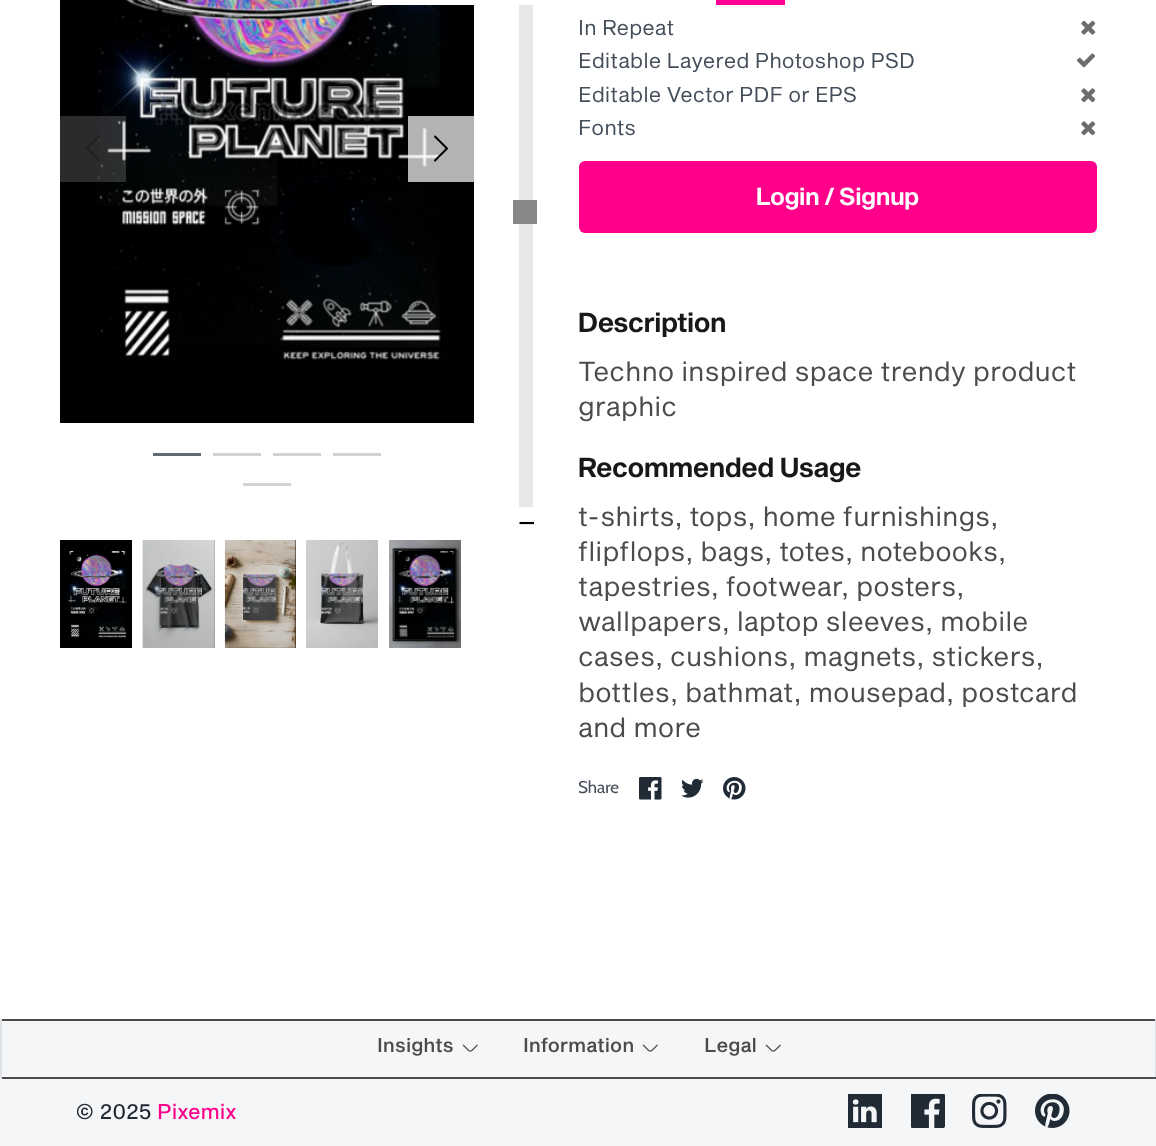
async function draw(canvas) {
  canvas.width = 1156
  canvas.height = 1146
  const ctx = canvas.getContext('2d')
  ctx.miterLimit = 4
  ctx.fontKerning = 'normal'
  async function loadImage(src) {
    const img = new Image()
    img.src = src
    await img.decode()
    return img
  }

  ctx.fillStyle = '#f4f6f8'
  ctx.fillRect(0, 0, 1156, 1146)
  ctx.fillStyle = '#fff'
  ctx.fillRect(0, 0, 1156, 1019)
  ctx.fillStyle = '#000103'
  ctx.fillRect(60, 0, 414, 423)
  ctx.drawImage(await loadImage('image0.png'), 97, 0, 345, 360)
  ctx.fillStyle = '#fff'
  ctx.fillRect(372, 0, 102, 5)
  ctx.fillStyle = '#ff0095'
  ctx.fillRect(716, 0, 69, 5)
  ctx.fillStyle = '#ffffff2b'
  ctx.fillRect(60, 116, 66, 66)
  ctx.beginPath()
  ctx.moveTo(99, 160.5)
  ctx.lineTo(87, 148.5)
  ctx.lineTo(99, 136.5)
  ctx.strokeStyle = '#00000040'
  ctx.lineWidth = 2
  ctx.lineCap = 'round'
  ctx.lineJoin = 'round'
  ctx.stroke()
  ctx.fillStyle = '#ffffffb3'
  ctx.fillRect(408, 116, 66, 66)
  ctx.beginPath()
  ctx.moveTo(435, 160.5)
  ctx.lineTo(447, 148.5)
  ctx.lineTo(435, 136.5)
  ctx.strokeStyle = '#000'
  ctx.stroke()
  ctx.fillStyle = '#616974'
  ctx.fillRect(153, 453, 48, 3)
  ctx.fillStyle = '#d1d3d6'
  ctx.fillRect(213, 453, 48, 3)
  ctx.fillRect(273, 453, 48, 3)
  ctx.fillRect(333, 453, 48, 3)
  ctx.fillRect(243, 483, 48, 3)
  ctx.fillStyle = '#e7e7e6'
  ctx.fillRect(519, 5, 14, 502)
  ctx.fillStyle = '#878787'
  ctx.fillRect(513, 200, 24, 24)
  ctx.font = '30px Liberation Sans'
  ctx.fillStyle = '#000'
  ctx.fillText('−', 518, 533)
  ctx.fillStyle = '#000103'
  ctx.fillRect(60, 540, 72, 108)
  ctx.drawImage(await loadImage('image1.png'), 66, 550, 61, 88)
  ctx.drawImage(await loadImage('image2.png'), 67, 550, 60, 88)
  ctx.fillRect(145, 540, 70, 108)
  ctx.drawImage(await loadImage('image4.png'), 149, 562, 60, 67)
  ctx.drawImage(await loadImage('image3.png'), 142, 540, 73, 108)
  ctx.fillRect(225, 540, 71, 108)
  ctx.drawImage(await loadImage('image6.png'), 242, 573, 35, 48)
  ctx.drawImage(await loadImage('image5.png'), 224, 540, 72, 108)
  ctx.fillRect(307, 589, 71, 48)
  ctx.drawImage(await loadImage('image8.png'), 317, 572, 55, 65)
  ctx.drawImage(await loadImage('image7.png'), 306, 540, 72, 108)
  ctx.fillRect(393, 549, 63, 91)
  ctx.drawImage(await loadImage('image10.png'), 395, 550, 61, 88)
  ctx.drawImage(await loadImage('image9.png'), 389, 540, 72, 108)
  ctx.font = '21px "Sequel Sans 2"'
  ctx.fillStyle = '#454f5b'
  ctx.fillText('In Repeat', 578, 35)
  ctx.drawImage(await loadImage('image11.png'), 1081, 20, 15, 15)
  ctx.fillText('Editable Layered Photoshop PSD', 578, 68)
  ctx.drawImage(await loadImage('image12.png'), 1076, 53, 20, 15)
  ctx.fillText('Editable Vector PDF or EPS', 578, 102)
  ctx.drawImage(await loadImage('image13.png'), 1081, 88, 15, 15)
  ctx.fillText('Fonts', 578, 135)
  ctx.drawImage(await loadImage('image13.png'), 1081, 121, 15, 15)
  ctx.fillStyle = '#ff008a'
  ctx.beginPath()
  ctx.roundRect(579, 161, 518, 72, 6)
  ctx.fill()
  ctx.font = '600 24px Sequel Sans'
  ctx.fillStyle = '#fff'
  ctx.fillText('Login / Signup', 756, 205)
  ctx.font = '600 27px Sequel Sans'
  ctx.fillStyle = '#181818'
  ctx.fillText('Description', 578, 332)
  ctx.font = '27px "Sequel Sans 2"'
  ctx.fillStyle = '#4b4b4b'
  ctx.fillText('Techno inspired space trendy product', 578, 381)
  ctx.fillText('graphic', 578, 416)
  ctx.font = '600 27px Sequel Sans'
  ctx.fillStyle = '#181818'
  ctx.fillText('Recommended Usage', 578, 477)
  ctx.font = '27px "Sequel Sans 2"'
  ctx.fillStyle = '#4b4b4b'
  ctx.fillText('t-shirts, tops, home furnishings,', 578, 526)
  ctx.fillText('flipflops, bags, totes, notebooks,', 578, 561)
  ctx.fillText('tapestries, footwear, posters,', 578, 596)
  ctx.fillText('wallpapers, laptop sleeves, mobile', 578, 631)
  ctx.fillText('cases, cushions, magnets, stickers,', 578, 666)
  ctx.fillText('bottles, bathmat, mousepad, postcard', 578, 702)
  ctx.fillText('and more', 578, 737)
  ctx.font = '17px Cabin'
  ctx.fillStyle = '#454f5b'
  ctx.fillText('Share', 578, 793)
  ctx.drawImage(await loadImage('image14.png'), 639, 777, 23, 23)
  ctx.drawImage(await loadImage('image15.png'), 681, 778, 23, 20)
  ctx.drawImage(await loadImage('image16.png'), 723, 777, 23, 23)
  ctx.fillStyle = '#4b4b4b'
  ctx.fillRect(0, 1019, 1156, 2)
  ctx.fillStyle = '#dee2e6'
  ctx.fillRect(1155, 1019, 1, 60)
  ctx.fillStyle = '#4b4b4b'
  ctx.fillRect(0, 1077, 1156, 2)
  ctx.fillStyle = '#dee2e6'
  ctx.fillRect(0, 1019, 2, 60)
  ctx.font = '500 19.5px Sequel Sans'
  ctx.fillStyle = '#4b4b4b'
  ctx.fillText('Insights', 377, 1052)
  ctx.drawImage(await loadImage('image17.png'), 462, 1044, 16, 8)
  ctx.fillText('Information', 523, 1052)
  ctx.drawImage(await loadImage('image17.png'), 642, 1044, 16, 8)
  ctx.fillText('Legal', 704, 1052)
  ctx.drawImage(await loadImage('image17.png'), 765, 1044, 16, 8)
  ctx.font = '21px Sequel Sans'
  ctx.fillStyle = '#212b36'
  ctx.fillText('© 2025', 75, 1119)
  ctx.fillStyle = '#ff008b'
  ctx.fillText('Pixemix', 157, 1119)
  ctx.drawImage(await loadImage('image18.png'), 848, 1094, 34, 34)
  ctx.drawImage(await loadImage('image19.png'), 911, 1094, 34, 34)
  ctx.drawImage(await loadImage('image20.png'), 972, 1094, 35, 34)
  ctx.drawImage(await loadImage('image21.png'), 1035, 1094, 35, 34)
}

draw(document.querySelector('canvas'))
